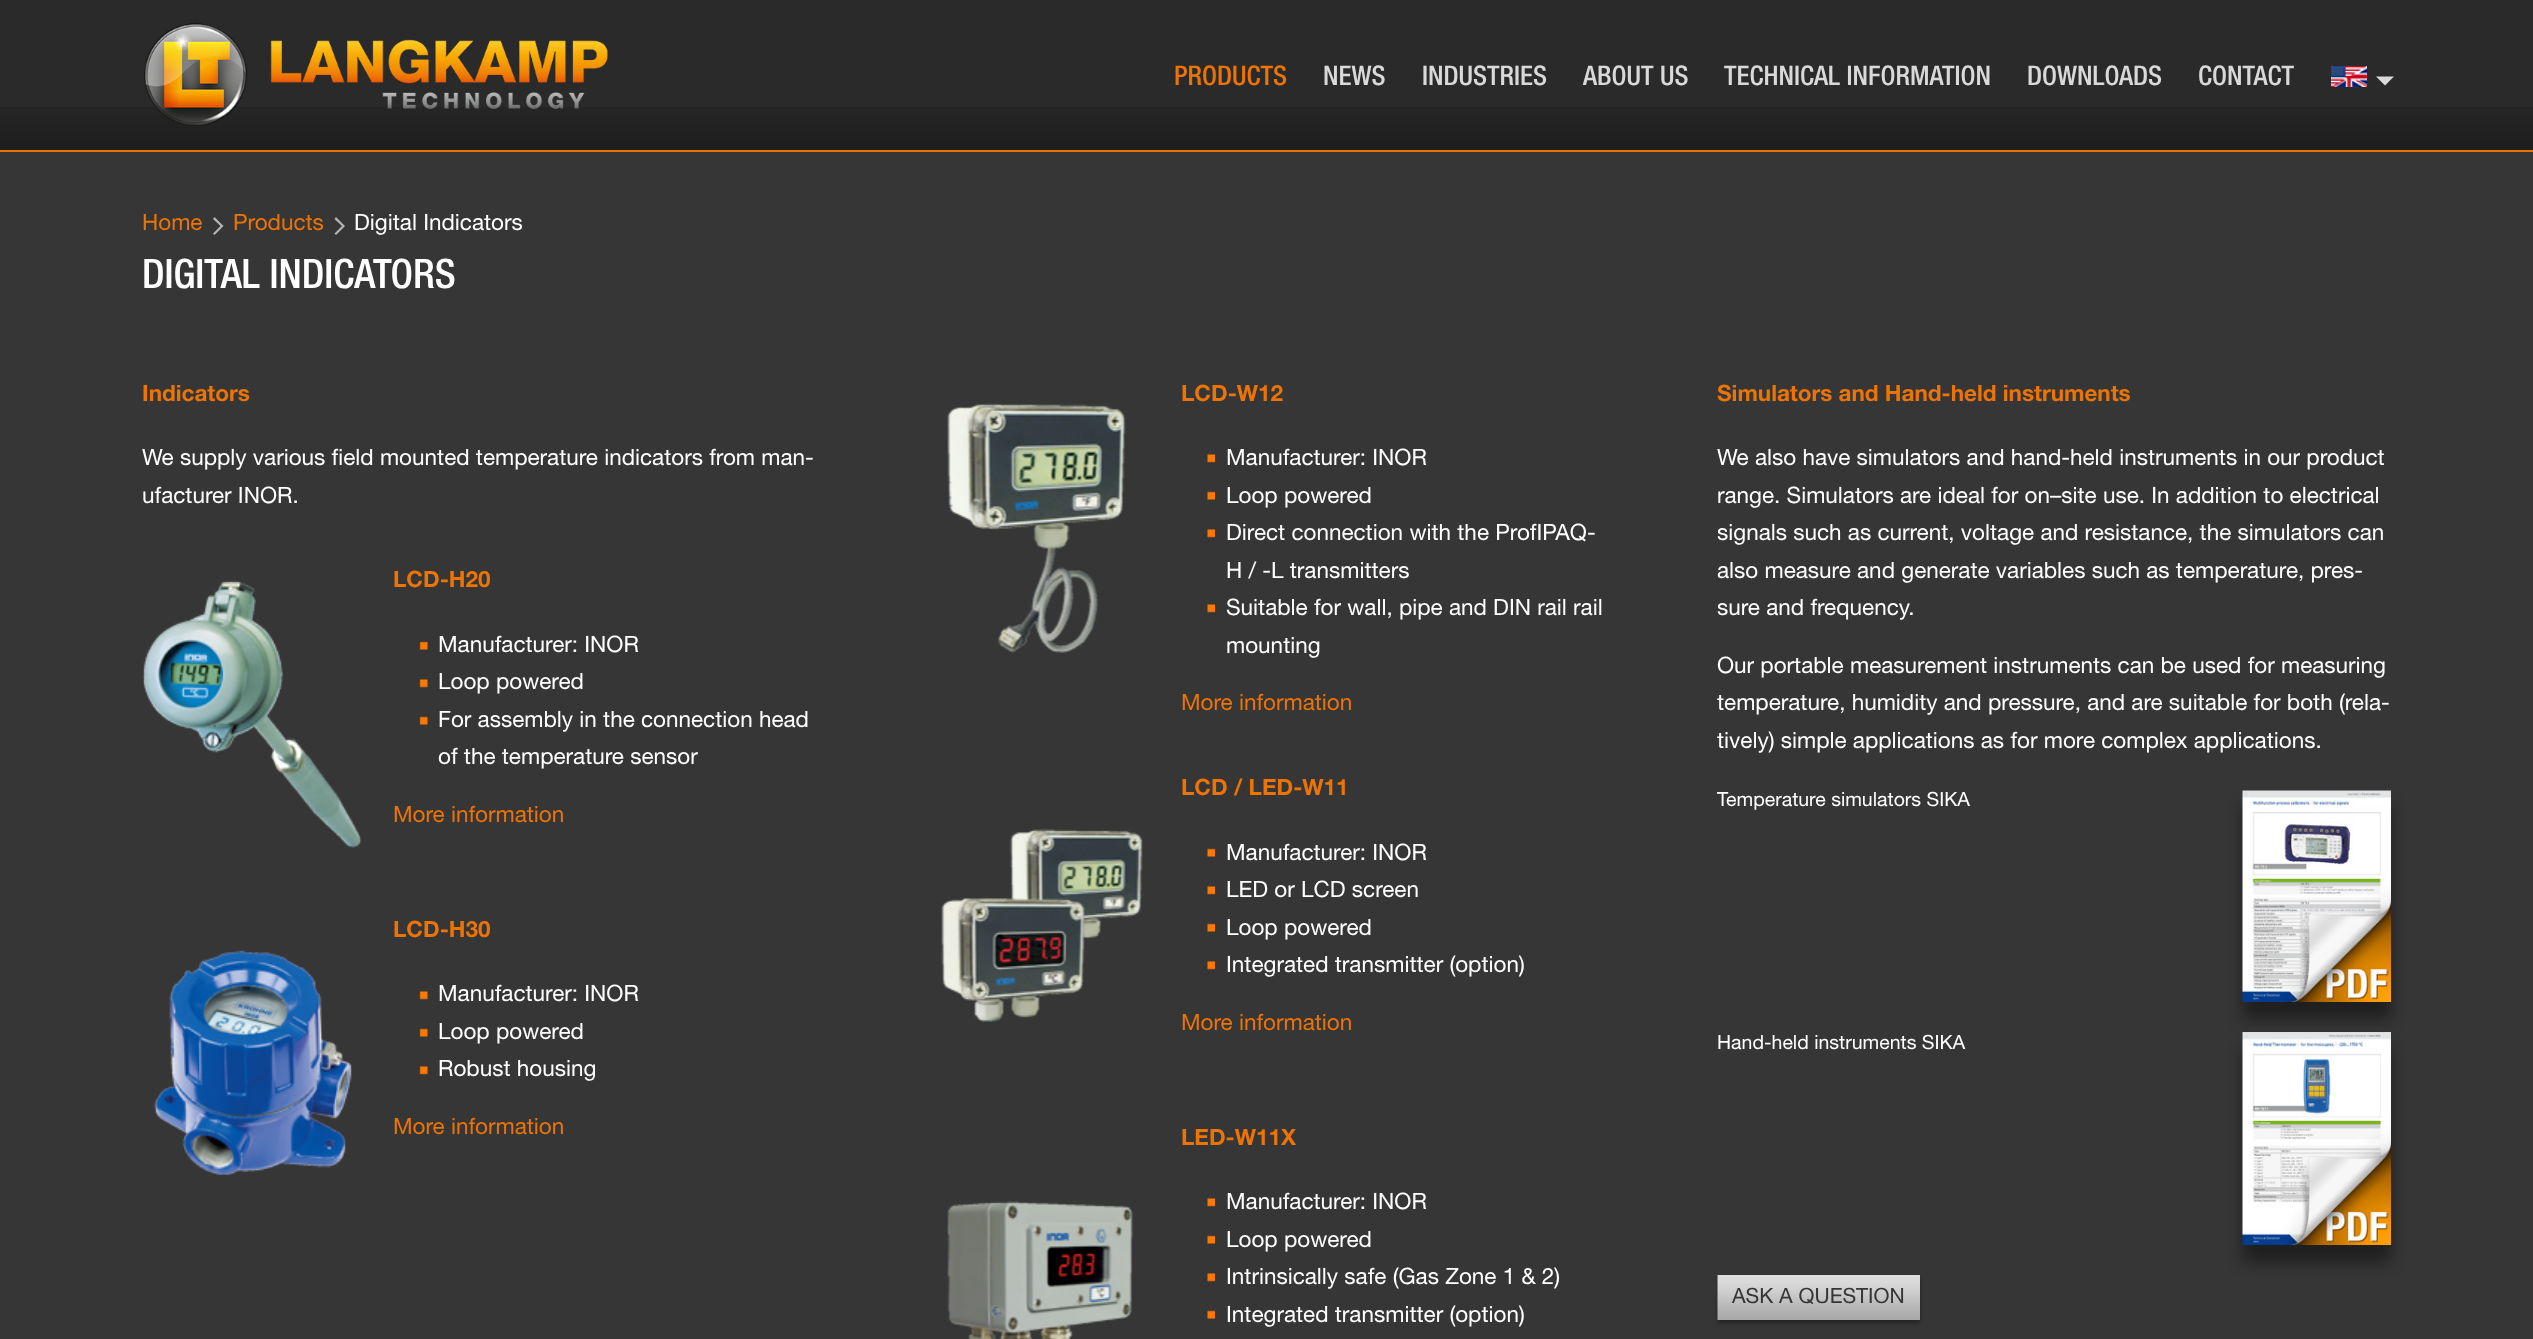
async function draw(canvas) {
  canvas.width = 2533
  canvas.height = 1339
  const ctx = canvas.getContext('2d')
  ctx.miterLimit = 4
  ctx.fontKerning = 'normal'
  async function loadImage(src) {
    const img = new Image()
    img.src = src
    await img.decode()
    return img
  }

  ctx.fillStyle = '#363636'
  ctx.fillRect(0, 0, 2533, 1339)
  ctx.fillStyle = '#2a2a2a'
  ctx.fillRect(0, 0, 2533, 150)
  ctx.drawImage(await loadImage('image0.png'), 0, 107, 2533, 43)
  ctx.fillStyle = '#ec7404'
  ctx.fillRect(0, 150, 2533, 2)
  ctx.drawImage(await loadImage('image1.png'), 144, 22, 464, 104)
  ctx.font = '27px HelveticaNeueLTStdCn'
  ctx.fillText('PRODUCTS', 1174, 85)
  ctx.fillStyle = '#d9d9d9'
  ctx.fillText('NEWS', 1323, 85)
  ctx.fillText('INDUSTRIES', 1422, 85)
  ctx.fillText('ABOUT US', 1583, 85)
  ctx.fillText('TECHNICAL INFORMATION', 1724, 85)
  ctx.fillText('DOWNLOADS', 2027, 85)
  ctx.fillText('CONTACT', 2198, 85)
  ctx.drawImage(await loadImage('image2.png'), 2331, 66, 36, 21)
  ctx.beginPath()
  ctx.moveTo(2376, 76.5)
  ctx.lineTo(2394, 76.5)
  ctx.lineTo(2385, 85.5)
  ctx.closePath()
  ctx.fill()
  ctx.font = '22.5px "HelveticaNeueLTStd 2"'
  ctx.fillStyle = '#ec7404'
  ctx.fillText('Home', 142, 230)
  ctx.fillStyle = '#b7b5b2'
  ctx.beginPath()
  ctx.moveTo(223.5, 226)
  ctx.lineTo(214.5, 217)
  ctx.lineTo(213, 219)
  ctx.lineTo(220.5, 226)
  ctx.lineTo(213, 233.5)
  ctx.lineTo(214.5, 235)
  ctx.closePath()
  ctx.fill()
  ctx.fillStyle = '#ec7404'
  ctx.fillText('Products', 233, 230)
  ctx.fillStyle = '#b7b5b2'
  ctx.beginPath()
  ctx.moveTo(345, 226)
  ctx.lineTo(336, 217)
  ctx.lineTo(334.5, 219)
  ctx.lineTo(342, 226)
  ctx.lineTo(334.5, 233.5)
  ctx.lineTo(336, 235)
  ctx.closePath()
  ctx.fill()
  ctx.fillStyle = '#fff'
  ctx.fillText('Digital Indicators', 354, 230)
  ctx.font = '40.5px HelveticaNeueLTStdCn'
  ctx.fillText('DIGITAL INDICATORS', 142, 288)
  ctx.font = '22.5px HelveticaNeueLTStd'
  ctx.fillStyle = '#ec7404'
  ctx.fillText('Indicators', 142, 401)
  ctx.font = '22.5px "HelveticaNeueLTStd 2"'
  ctx.fillStyle = '#fff'
  ctx.fillText('We supply various field mounted temperature indicators from man-', 142, 465)
  ctx.fillText('ufacturer INOR.', 142, 503)
  ctx.drawImage(await loadImage('image3.png'), 142, 581, 220, 267)
  ctx.font = '22.5px HelveticaNeueLTStd'
  ctx.fillStyle = '#ec7404'
  ctx.fillText('LCD-H20', 393, 587)
  ctx.drawImage(await loadImage('image4.png'), 419, 641, 9, 9)
  ctx.font = '22.5px "HelveticaNeueLTStd 2"'
  ctx.fillStyle = '#fff'
  ctx.fillText('Manufacturer: INOR', 438, 652)
  ctx.drawImage(await loadImage('image5.png'), 419, 679, 9, 9)
  ctx.fillText('Loop powered', 438, 689)
  ctx.drawImage(await loadImage('image4.png'), 419, 716, 9, 9)
  ctx.fillText('For assembly in the connection head', 438, 727)
  ctx.fillText('of the temperature sensor', 438, 764)
  ctx.fillStyle = '#ec7404'
  ctx.fillText('More information', 393, 822)
  ctx.drawImage(await loadImage('image6.png'), 154, 950, 198, 225)
  ctx.font = '22.5px HelveticaNeueLTStd'
  ctx.fillText('LCD-H30', 393, 937)
  ctx.drawImage(await loadImage('image5.png'), 419, 991, 9, 9)
  ctx.font = '22.5px "HelveticaNeueLTStd 2"'
  ctx.fillStyle = '#fff'
  ctx.fillText('Manufacturer: INOR', 438, 1001)
  ctx.drawImage(await loadImage('image4.png'), 419, 1028, 9, 9)
  ctx.fillText('Loop powered', 438, 1039)
  ctx.drawImage(await loadImage('image5.png'), 419, 1066, 9, 9)
  ctx.fillText('Robust housing', 438, 1076)
  ctx.fillStyle = '#ec7404'
  ctx.fillText('More information', 393, 1134)
  ctx.drawImage(await loadImage('image7.png'), 947, 403, 179, 250)
  ctx.font = '22.5px HelveticaNeueLTStd'
  ctx.fillText('LCD-W12', 1181, 401)
  ctx.drawImage(await loadImage('image8.png'), 1207, 454, 8, 9)
  ctx.font = '22.5px "HelveticaNeueLTStd 2"'
  ctx.fillStyle = '#fff'
  ctx.fillText('Manufacturer: INOR', 1226, 465)
  ctx.drawImage(await loadImage('image9.png'), 1207, 491, 8, 9)
  ctx.fillText('Loop powered', 1226, 503)
  ctx.drawImage(await loadImage('image8.png'), 1207, 529, 8, 9)
  ctx.fillText('Direct connection with the ProfIPAQ-', 1226, 540)
  ctx.fillText('H / -L transmitters', 1226, 578)
  ctx.drawImage(await loadImage('image8.png'), 1207, 604, 8, 9)
  ctx.fillText('Suitable for wall, pipe and DIN rail rail', 1226, 615)
  ctx.fillText('mounting', 1226, 653)
  ctx.fillStyle = '#ec7404'
  ctx.fillText('More information', 1181, 710)
  ctx.drawImage(await loadImage('image10.png'), 941, 829, 202, 193)
  ctx.font = '22.5px HelveticaNeueLTStd'
  ctx.fillText('LCD / LED-W11', 1181, 795)
  ctx.drawImage(await loadImage('image9.png'), 1207, 848, 8, 9)
  ctx.font = '22.5px "HelveticaNeueLTStd 2"'
  ctx.fillStyle = '#fff'
  ctx.fillText('Manufacturer: INOR', 1226, 860)
  ctx.drawImage(await loadImage('image8.png'), 1207, 886, 8, 9)
  ctx.fillText('LED or LCD screen', 1226, 897)
  ctx.drawImage(await loadImage('image9.png'), 1207, 923, 8, 9)
  ctx.fillText('Loop powered', 1226, 935)
  ctx.drawImage(await loadImage('image8.png'), 1207, 961, 8, 9)
  ctx.fillText('Integrated transmitter (option)', 1226, 972)
  ctx.fillStyle = '#ec7404'
  ctx.fillText('More information', 1181, 1030)
  ctx.drawImage(await loadImage('image11.png'), 947, 1201, 187, 138)
  ctx.font = '22.5px HelveticaNeueLTStd'
  ctx.fillText('LED-W11X', 1181, 1145)
  ctx.drawImage(await loadImage('image8.png'), 1207, 1198, 8, 9)
  ctx.font = '22.5px "HelveticaNeueLTStd 2"'
  ctx.fillStyle = '#fff'
  ctx.fillText('Manufacturer: INOR', 1226, 1209)
  ctx.drawImage(await loadImage('image9.png'), 1207, 1235, 8, 9)
  ctx.fillText('Loop powered', 1226, 1247)
  ctx.drawImage(await loadImage('image8.png'), 1207, 1273, 8, 9)
  ctx.fillText('Intrinsically safe (Gas Zone 1 & 2)', 1226, 1284)
  ctx.drawImage(await loadImage('image9.png'), 1207, 1310, 8, 9)
  ctx.fillText('Integrated transmitter (option)', 1226, 1322)
  ctx.font = '22.5px HelveticaNeueLTStd'
  ctx.fillStyle = '#ec7404'
  ctx.fillText('Simulators and Hand-held instruments', 1717, 401)
  ctx.font = '22.5px "HelveticaNeueLTStd 2"'
  ctx.fillStyle = '#fff'
  ctx.fillText('We also have simulators and hand-held instruments in our product', 1717, 465)
  ctx.fillText('range. Simulators are ideal for on–site use. In addition to electrical', 1717, 503)
  ctx.fillText('signals such as current, voltage and resistance, the simulators can', 1717, 540)
  ctx.fillText('also measure and generate variables such as temperature, pres-', 1717, 578)
  ctx.fillText('sure and frequency.', 1717, 615)
  ctx.fillText('Our portable measurement instruments can be used for measuring', 1717, 673)
  ctx.fillText('temperature, humidity and pressure, and are suitable for both (rela-', 1717, 710)
  ctx.fillText('tively) simple applications as for more complex applications.', 1717, 748)
  ctx.font = '19.5px "HelveticaNeueLTStd 2"'
  ctx.fillText('Temperature simulators SIKA', 1717, 806)
  ctx.fillStyle = '#0000006e'
  ctx.filter = 'blur(8px)'
  ctx.beginPath()
  ctx.rect(2243, 807, 148, 212)
  ctx.fill()
  ctx.filter = 'none'
  ctx.drawImage(await loadImage('image12.png'), 2242, 790, 149, 212)
  ctx.fillStyle = '#fff'
  ctx.fillText('Hand-held instruments SIKA', 1717, 1049)
  ctx.fillStyle = '#0000006e'
  ctx.filter = 'blur(8px)'
  ctx.beginPath()
  ctx.rect(2243, 1049, 148, 213)
  ctx.fill()
  ctx.filter = 'none'
  ctx.drawImage(await loadImage('image13.png'), 2242, 1032, 149, 213)
  ctx.fillStyle = '#00000059'
  ctx.filter = 'blur(2px)'
  ctx.beginPath()
  ctx.rect(1718, 1278, 202, 45)
  ctx.fill()
  ctx.filter = 'none'
  ctx.drawImage(await loadImage('image14.png'), 1717, 1275, 203, 45)
  ctx.font = '21px "HelveticaNeueLTStd 2"'
  ctx.fillStyle = '#363636'
  ctx.fillText('ASK A QUESTION', 1732, 1303)
}

draw(document.querySelector('canvas'))
